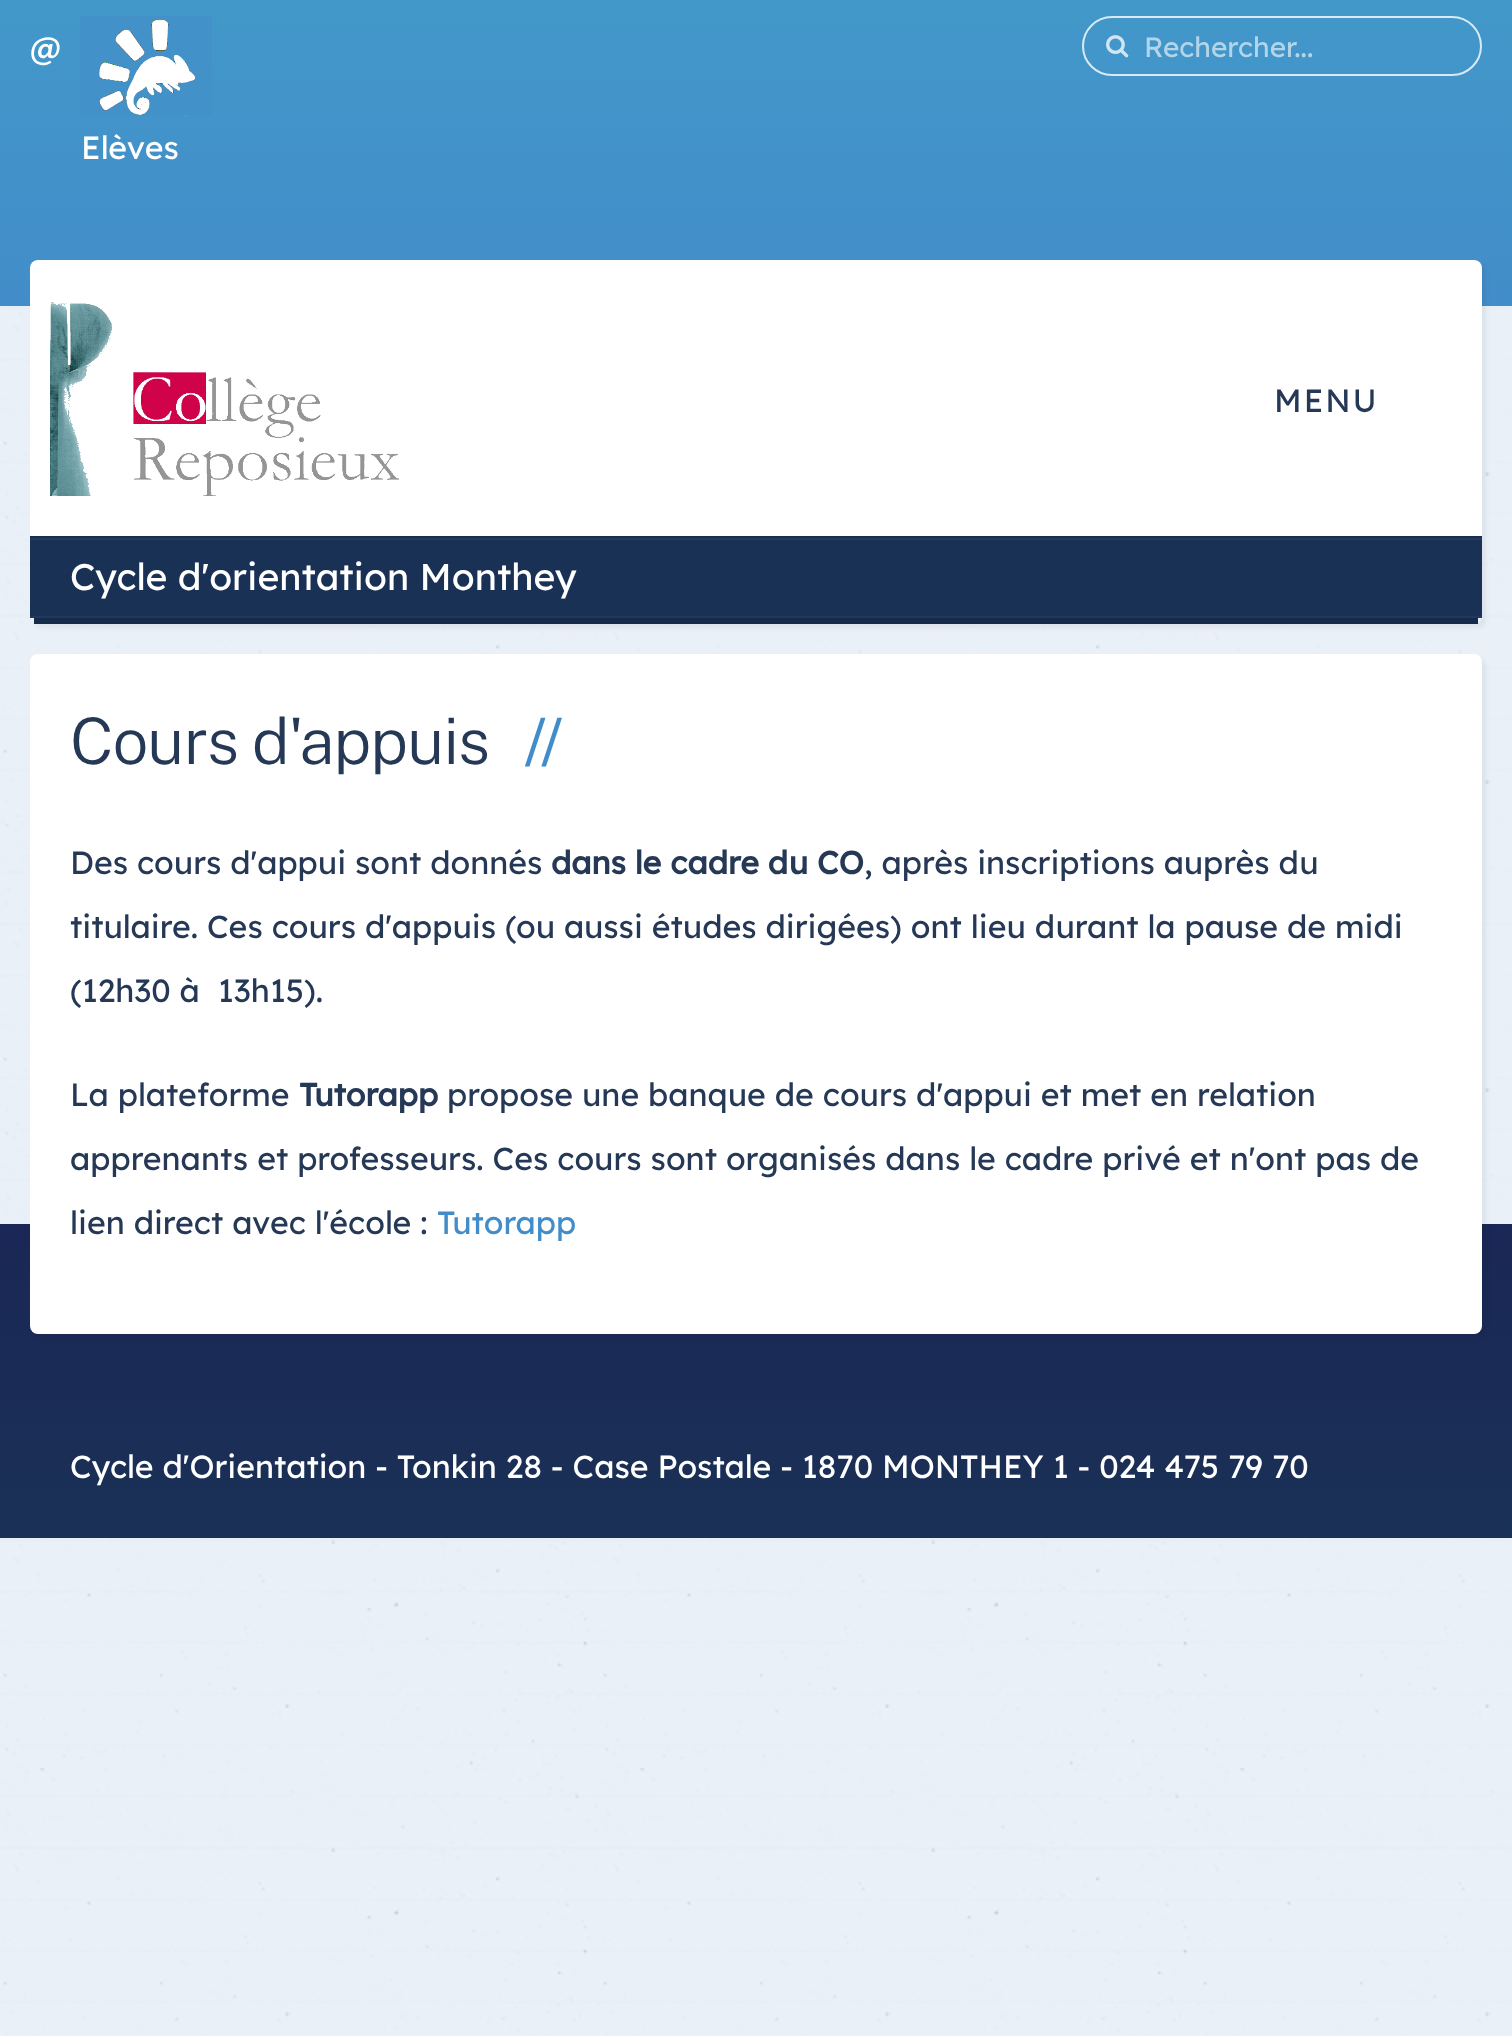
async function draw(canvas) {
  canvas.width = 1512
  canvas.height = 2036
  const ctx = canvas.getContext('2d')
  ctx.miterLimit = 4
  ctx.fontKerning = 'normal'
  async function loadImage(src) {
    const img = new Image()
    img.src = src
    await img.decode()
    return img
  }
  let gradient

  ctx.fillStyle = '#e3ecf5'
  ctx.fillRect(0, 0, 1512, 2036)
  ctx.drawImage(await loadImage('image0.png'), 0, 306, 1512, 1730)
  gradient = ctx.createLinearGradient(756, 0, 756, 306)
  gradient.addColorStop(0, '#4298c9')
  gradient.addColorStop(1, '#428dc9')
  ctx.fillStyle = gradient
  ctx.fillRect(0, 0, 1512, 306)
  ctx.font = '32px Lexend Deca'
  ctx.fillStyle = '#fff'
  ctx.fillText('@', 30, 60)
  ctx.drawImage(await loadImage('image1.png'), 80, 16, 132, 100)
  ctx.fillText('Elèves', 81, 159)
  ctx.beginPath()
  ctx.roundRect(1083, 17, 398, 58, 29)
  ctx.strokeStyle = '#d9eaf4'
  ctx.lineWidth = 2
  ctx.stroke()
  ctx.drawImage(await loadImage('image2.png'), 1106, 35, 23, 23)
  ctx.font = '28px Lexend Deca'
  ctx.fillStyle = '#b3d5e9'
  ctx.fillText('Rechercher...', 1144, 57)
  ctx.save()
  ctx.beginPath()
  ctx.moveTo(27, 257)
  ctx.lineTo(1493, 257)
  ctx.lineTo(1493, 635)
  ctx.lineTo(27, 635)
  ctx.closePath()
  ctx.moveTo(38, 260)
  ctx.lineTo(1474, 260)
  ctx.bezierCurveTo(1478.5, 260, 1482, 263.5, 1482, 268)
  ctx.lineTo(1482, 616)
  ctx.bezierCurveTo(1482, 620.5, 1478.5, 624, 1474, 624)
  ctx.lineTo(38, 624)
  ctx.bezierCurveTo(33.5, 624, 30, 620.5, 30, 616)
  ctx.lineTo(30, 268)
  ctx.bezierCurveTo(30, 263.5, 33.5, 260, 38, 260)
  ctx.closePath()
  ctx.clip('evenodd')
  ctx.fillStyle = '#0000000d'
  ctx.filter = 'blur(2px)'
  ctx.beginPath()
  ctx.roundRect(34, 264, 1452, 364, 8)
  ctx.fill()
  ctx.filter = 'none'
  ctx.restore()
  ctx.fillStyle = '#162a4a'
  ctx.fillRect(34, 618, 1444, 6)
  ctx.fillStyle = '#fff'
  ctx.beginPath()
  ctx.roundRect(30, 260, 1452, 276, [8, 8, 0, 0])
  ctx.fill()
  ctx.drawImage(await loadImage('image3.png'), 50, 302, 349, 194)
  ctx.letterSpacing = '2px'
  ctx.font = '32px Lexend Deca'
  ctx.fillStyle = '#253856'
  ctx.fillText('MENU', 1274, 412)
  ctx.fillStyle = '#1a3156'
  ctx.fillRect(30, 540, 1452, 76)
  ctx.fillStyle = '#22385c'
  ctx.fillRect(30, 616, 1452, 2)
  ctx.fillStyle = '#253b5e'
  ctx.fillRect(30, 538, 1452, 2)
  ctx.fillStyle = '#182d50'
  ctx.fillRect(30, 536, 1452, 2)
  ctx.letterSpacing = '0px'
  ctx.font = '37.3px Lexend Deca'
  ctx.fillStyle = '#fff'
  ctx.fillText('Cycle d\'orientation Monthey', 70, 590)
  gradient = ctx.createLinearGradient(756, 1224, 756, 1538)
  gradient.addColorStop(0, '#1a2756')
  gradient.addColorStop(1, '#1a3156')
  ctx.fillStyle = gradient
  ctx.fillRect(0, 1224, 1512, 314)
  ctx.fillStyle = '#0000000d'
  ctx.filter = 'blur(2px)'
  ctx.beginPath()
  ctx.roundRect(34, 658, 1452, 680, 8)
  ctx.fill()
  ctx.filter = 'none'
  ctx.fillStyle = '#fff'
  ctx.beginPath()
  ctx.roundRect(30, 654, 1452, 680, 8)
  ctx.fill()
  ctx.letterSpacing = '-1px'
  ctx.font = '300 64px Public Sans'
  ctx.fillStyle = '#253856'
  ctx.fillText('Cours d\'appuis', 70, 764)
  ctx.letterSpacing = '-6px'
  ctx.font = '64px Public Sans'
  ctx.fillStyle = '#428dc9'
  ctx.fillText('//', 524, 764)
  ctx.letterSpacing = '0px'
  ctx.font = '32px Lexend Deca'
  ctx.fillStyle = '#253856'
  ctx.fillText('Des cours d\'appui sont donnés', 70, 874)
  ctx.font = 'bold 32px Lexend Deca'
  ctx.fillText('dans le cadre du CO', 551, 874)
  ctx.font = '32px Lexend Deca'
  ctx.fillText(', après inscriptions auprès du', 864, 874)
  ctx.fillText('titulaire. Ces cours d\'appuis (ou aussi études dirigées) ont lieu durant la pause de midi', 70, 938)
  ctx.fillText('(12h30 à  13h15).', 70, 1002)
  ctx.fillText('La plateforme', 70, 1106)
  ctx.font = 'bold 32px Lexend Deca'
  ctx.fillText('Tutorapp', 299, 1106)
  ctx.font = '32px Lexend Deca'
  ctx.fillText('propose une banque de cours d\'appui et met en relation', 447, 1106)
  ctx.fillText('apprenants et professeurs. Ces cours sont organisés dans le cadre privé et n\'ont pas de', 70, 1170)
  ctx.fillText('lien direct avec l\'école :', 70, 1234)
  ctx.fillStyle = '#428dc9'
  ctx.fillText('Tutorapp', 437, 1234)
  ctx.fillStyle = '#fff'
  ctx.fillText('Cycle d\'Orientation - Tonkin 28 - Case Postale - 1870 MONTHEY 1 - 024 475 79 70', 70, 1478)
}

draw(document.querySelector('canvas'))
